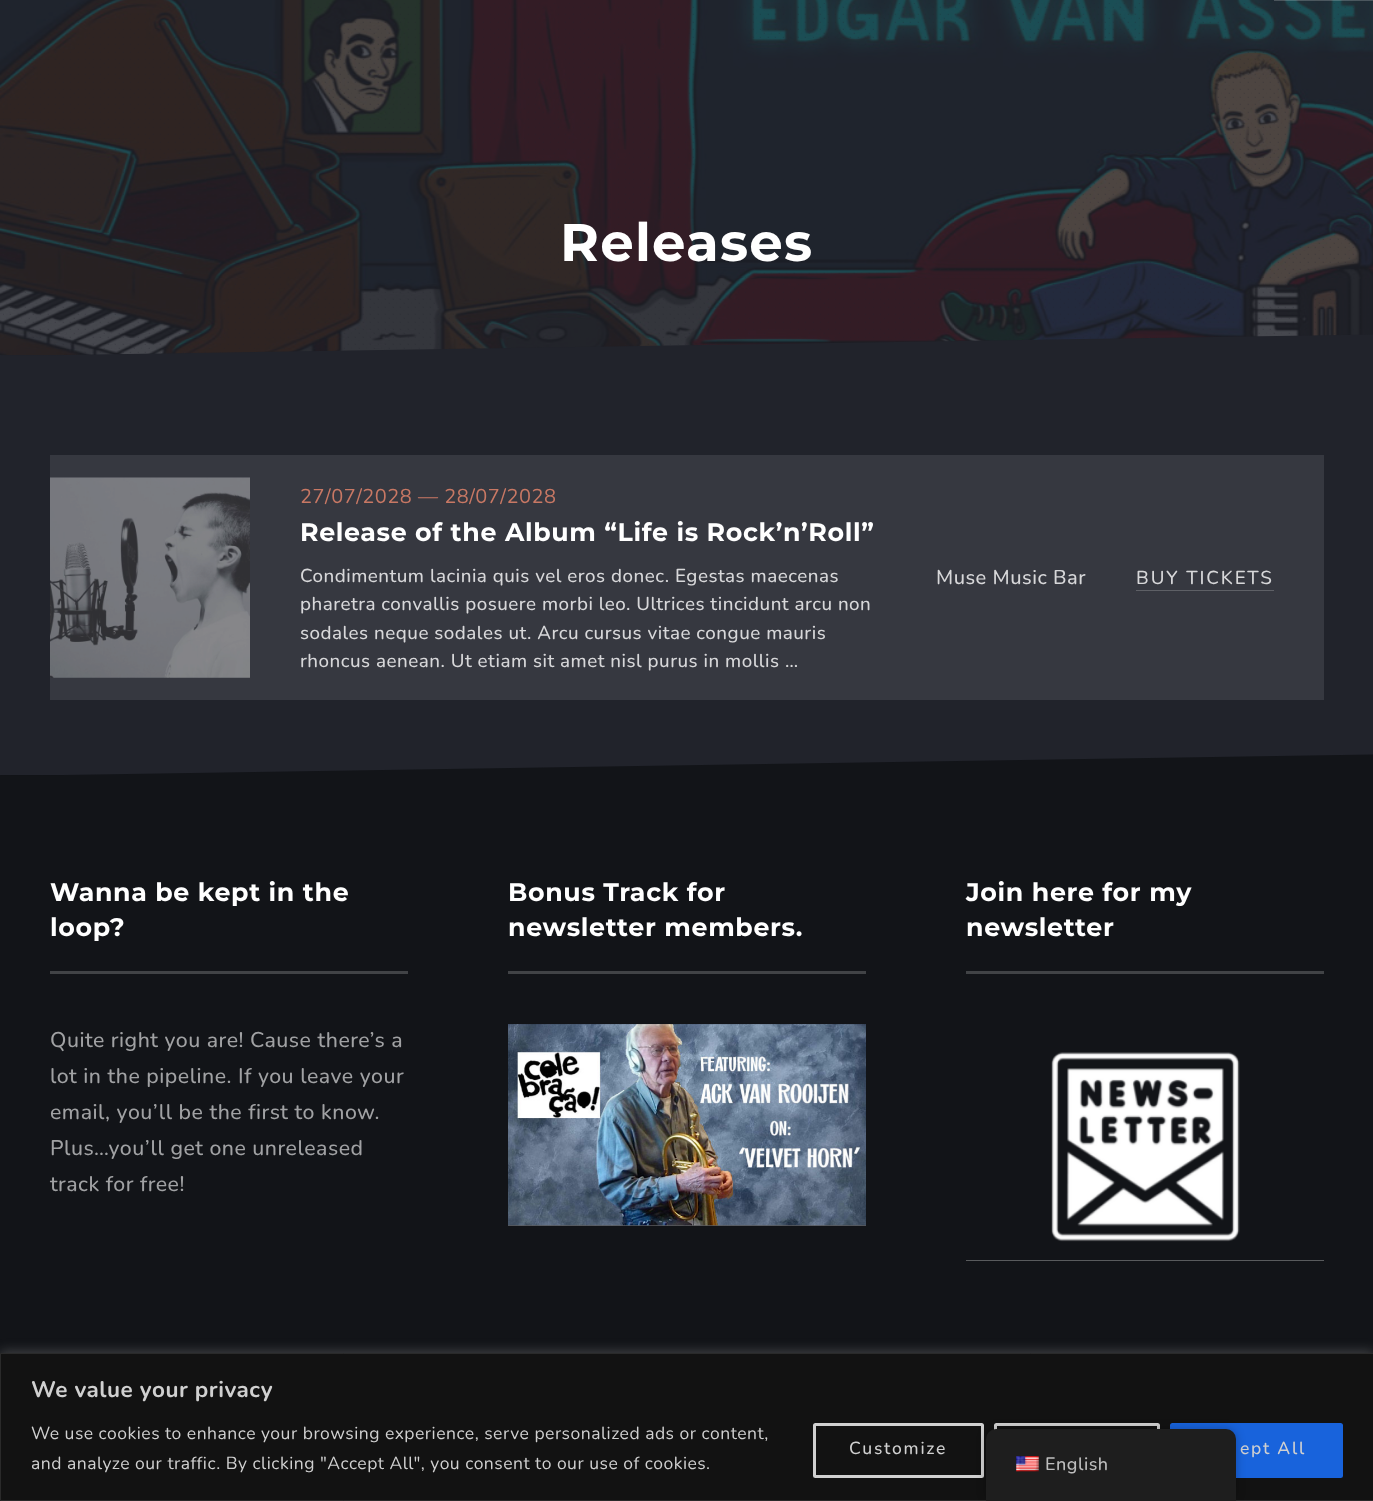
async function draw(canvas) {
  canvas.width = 1373
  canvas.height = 1501
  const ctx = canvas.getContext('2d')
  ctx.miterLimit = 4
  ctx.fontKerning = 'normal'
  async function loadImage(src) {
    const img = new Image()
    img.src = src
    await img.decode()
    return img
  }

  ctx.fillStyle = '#121418'
  ctx.fillRect(0, 0, 1373, 1501)
  ctx.drawImage(await loadImage('image0.png'), 0, 0, 1373, 355)
  ctx.fillStyle = '#ffffff33'
  ctx.fillRect(1274, 0, 99, 1)
  ctx.drawImage(await loadImage('image1.png'), 3, 3, 1366, 350)
  ctx.letterSpacing = '1.25px'
  ctx.font = 'bold 53px Montserrat'
  ctx.fillStyle = '#fff'
  ctx.fillText('Releases', 560, 261)
  ctx.fillStyle = '#21232b'
  ctx.fillRect(0, 355, 1373, 420)
  ctx.beginPath()
  ctx.moveTo(0, 356)
  ctx.lineTo(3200, 356)
  ctx.lineTo(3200, 306)
  ctx.closePath()
  ctx.fill()
  ctx.fillStyle = '#363840'
  ctx.fillRect(50, 455, 1274, 245)
  ctx.drawImage(await loadImage('image2.png'), 50, 477, 200, 201)
  ctx.letterSpacing = '0.5px'
  ctx.font = '20px Nunito'
  ctx.fillStyle = '#c87864'
  ctx.fillText('27/07/2028 — 28/07/2028', 300, 503)
  ctx.letterSpacing = '0.65px'
  ctx.font = 'bold 25.3px Montserrat'
  ctx.fillStyle = '#fff'
  ctx.fillText('Release of the Album “Life is Rock’n’Roll”', 300, 541)
  ctx.letterSpacing = '0.5px'
  ctx.font = '500 18.75px Nunito'
  ctx.fillStyle = '#d7d7d9'
  ctx.fillText('Condimentum lacinia quis vel eros donec. Egestas maecenas', 300, 582)
  ctx.fillText('pharetra convallis posuere morbi leo. Ultrices tincidunt arcu non', 300, 610)
  ctx.fillText('sodales neque sodales ut. Arcu cursus vitae congue mauris', 300, 639)
  ctx.fillText('rhoncus aenean. Ut etiam sit amet nisl purus in mollis …', 300, 667)
  ctx.font = '500 20px Nunito'
  ctx.fillText('Muse Music Bar', 936, 584)
  ctx.fillStyle = '#5e6066'
  ctx.fillRect(1136, 590, 138, 1)
  ctx.letterSpacing = '1.9px'
  ctx.font = '500 18.75px Nunito'
  ctx.fillStyle = '#d7d7d9'
  ctx.fillText('BUY TICKETS', 1136, 584)
  ctx.fillStyle = '#121418'
  ctx.beginPath()
  ctx.moveTo(0, 776)
  ctx.lineTo(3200, 776)
  ctx.lineTo(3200, 726)
  ctx.closePath()
  ctx.fill()
  ctx.fillStyle = '#414346'
  ctx.fillRect(50, 971, 358, 3)
  ctx.letterSpacing = '0.65px'
  ctx.font = 'bold 25.3px Montserrat'
  ctx.fillStyle = '#fff'
  ctx.fillText('Wanna be kept in the', 50, 901)
  ctx.fillText('loop?', 50, 936)
  ctx.letterSpacing = '0.5px'
  ctx.font = '500 21.25px Nunito'
  ctx.fillStyle = '#a0a1a3'
  ctx.fillText('Quite right you are! Cause there’s a', 50, 1047)
  ctx.fillText('lot in the pipeline. If you leave your', 50, 1083)
  ctx.fillText('email, you’ll be the first to know.', 50, 1119)
  ctx.fillText('Plus…you’ll get one unreleased', 50, 1155)
  ctx.fillText('track for free!', 50, 1191)
  ctx.fillStyle = '#414346'
  ctx.fillRect(508, 971, 358, 3)
  ctx.letterSpacing = '0.65px'
  ctx.font = 'bold 25.3px Montserrat'
  ctx.fillStyle = '#fff'
  ctx.fillText('Bonus Track for', 508, 901)
  ctx.fillText('newsletter members.', 508, 936)
  ctx.fillStyle = '#595b5d'
  ctx.fillRect(508, 1225, 358, 1)
  ctx.drawImage(await loadImage('image3.png'), 508, 1024, 358, 202)
  ctx.fillStyle = '#414346'
  ctx.fillRect(966, 971, 358, 3)
  ctx.fillStyle = '#fff'
  ctx.fillText('Join here for my', 966, 901)
  ctx.fillText('newsletter', 966, 936)
  ctx.fillStyle = '#595b5d'
  ctx.fillRect(966, 1260, 358, 1)
  ctx.drawImage(await loadImage('image4.png'), 1051, 1052, 189, 190)
  ctx.fillStyle = '#acabab4d'
  ctx.filter = 'blur(6px)'
  ctx.beginPath()
  ctx.rect(0, 1351, 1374, 149)
  ctx.fill()
  ctx.filter = 'none'
  ctx.fillStyle = '#121212'
  ctx.beginPath()
  ctx.rect(0.5, 1353.5, 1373, 147)
  ctx.fill()
  ctx.strokeStyle = '#2a2a2a'
  ctx.stroke()
  ctx.letterSpacing = '0.5px'
  ctx.font = 'bold 22.5px Nunito'
  ctx.fillStyle = '#d0d0d0'
  ctx.fillText('We value your privacy', 31, 1397)
  ctx.font = '17.5px Nunito'
  ctx.fillText('We use cookies to enhance your browsing experience, serve personalized ads or content,', 31, 1439)
  ctx.fillText('and analyze our traffic. By clicking "Accept All", you consent to our use of cookies.', 31, 1469)
  ctx.beginPath()
  ctx.roundRect(814.5, 1424.5, 168, 52, 1)
  ctx.strokeStyle = '#d0d0d0'
  ctx.lineWidth = 3
  ctx.stroke()
  ctx.letterSpacing = '1.75px'
  ctx.font = '500 17.5px Nunito'
  ctx.fillText('Customize', 849, 1454)
  ctx.beginPath()
  ctx.roundRect(995.5, 1424.5, 163, 52, 1)
  ctx.stroke()
  ctx.fillStyle = '#1863dc'
  ctx.beginPath()
  ctx.roundRect(1171.5, 1424.5, 170, 52, 1)
  ctx.fill()
  ctx.strokeStyle = '#1863dc'
  ctx.stroke()
  ctx.fillStyle = '#d0d0d0'
  ctx.fillText('ept All', 1240, 1454)
  ctx.fillStyle = '#00000040'
  ctx.filter = 'blur(5px)'
  ctx.beginPath()
  ctx.roundRect(986, 1429, 250, 72, 10)
  ctx.fill()
  ctx.filter = 'none'
  ctx.fillStyle = '#1e1e1e'
  ctx.beginPath()
  ctx.roundRect(986, 1429, 250, 72, [10, 10, 0, 0])
  ctx.fill()
  ctx.drawImage(await loadImage('image5.png'), 1016, 1456, 23, 16)
  ctx.letterSpacing = '0.5px'
  ctx.font = '500 18px Nunito'
  ctx.fillStyle = '#bdbdbd'
  ctx.fillText('English', 1045, 1470)
}

draw(document.querySelector('canvas'))
